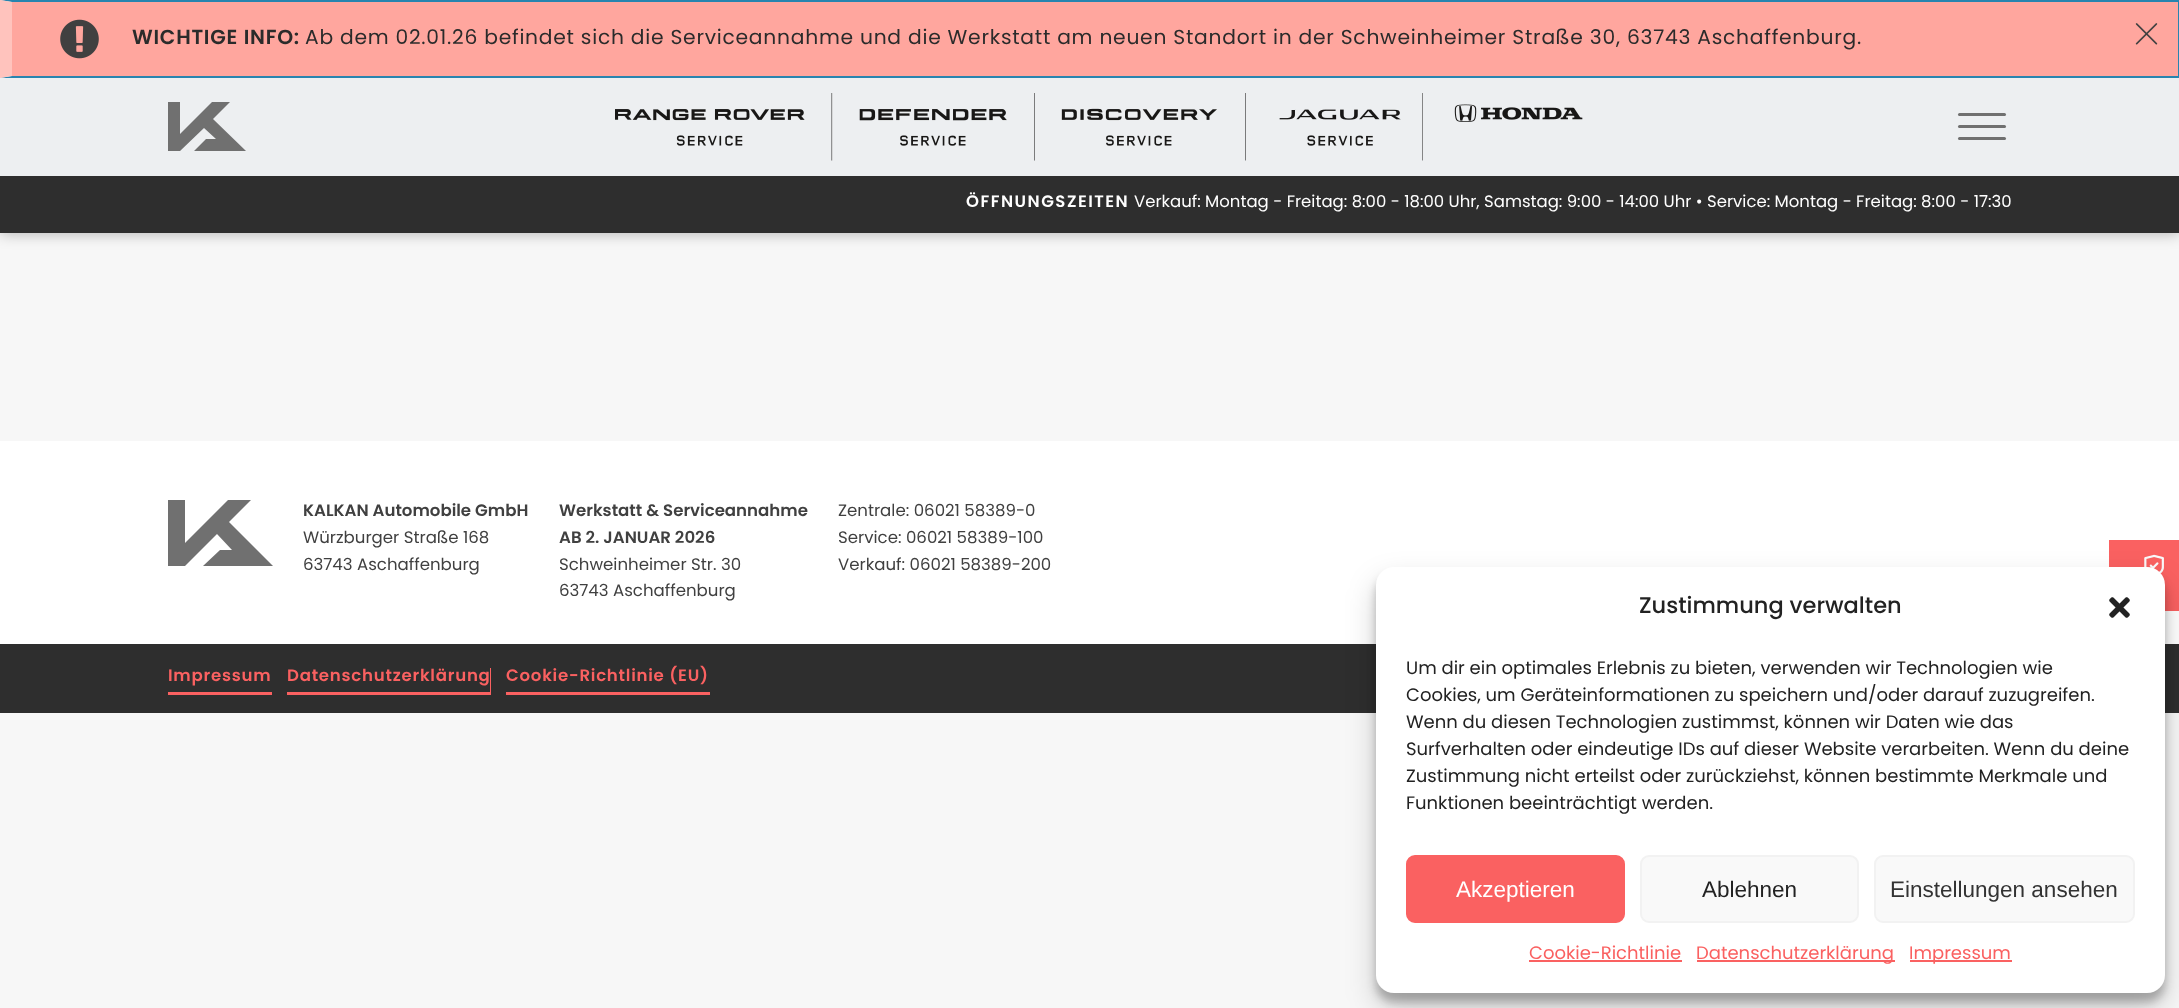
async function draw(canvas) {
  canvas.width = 2179
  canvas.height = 1008
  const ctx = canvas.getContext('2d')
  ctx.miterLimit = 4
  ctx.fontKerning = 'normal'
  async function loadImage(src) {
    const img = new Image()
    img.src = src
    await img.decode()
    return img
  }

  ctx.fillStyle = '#f7f7f7'
  ctx.fillRect(0, 0, 2179, 1008)
  ctx.fillStyle = '#0000004d'
  ctx.filter = 'blur(7.5px)'
  ctx.beginPath()
  ctx.rect(0, 0, 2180, 233)
  ctx.fill()
  ctx.filter = 'none'
  ctx.fillStyle = '#edeff1'
  ctx.fillRect(0, 0, 2179, 176)
  ctx.fillStyle = '#ffa69e'
  ctx.fillRect(12, 2, 2166, 74)
  ctx.fillStyle = '#2884af'
  ctx.beginPath()
  ctx.moveTo(0, 0)
  ctx.lineTo(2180, 0)
  ctx.lineTo(2178, 2)
  ctx.lineTo(12, 2)
  ctx.closePath()
  ctx.fill()
  ctx.fillRect(2178, 0, 1, 78)
  ctx.beginPath()
  ctx.moveTo(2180, 78)
  ctx.lineTo(0, 78)
  ctx.lineTo(12, 76)
  ctx.lineTo(2178, 76)
  ctx.closePath()
  ctx.fill()
  ctx.fillStyle = '#ffc3bd'
  ctx.beginPath()
  ctx.moveTo(0, 78)
  ctx.lineTo(0, 0)
  ctx.lineTo(12, 2)
  ctx.lineTo(12, 76)
  ctx.closePath()
  ctx.fill()
  ctx.drawImage(await loadImage('image0.png'), 60, 19, 39, 40)
  ctx.letterSpacing = '0.75px'
  ctx.font = '600 20.25px Poppins'
  ctx.fillStyle = '#2b2b2b'
  ctx.fillText('WICHTIGE INFO:', 132, 44)
  ctx.font = '20.25px Poppins'
  ctx.fillText('Ab dem 02.01.26 befindet sich die Serviceannahme und die Werkstatt am neuen Standort in der Schweinheimer Straße 30, 63743 Aschaffenburg.', 305, 44)
  ctx.drawImage(await loadImage('image1.png'), 2135, 23, 23, 22)
  ctx.fillStyle = '#707070'
  ctx.beginPath()
  ctx.moveTo(246, 151)
  ctx.lineTo(213, 119)
  ctx.lineTo(230, 102)
  ctx.lineTo(212, 102)
  ctx.lineTo(180, 134)
  ctx.lineTo(180, 102)
  ctx.lineTo(168, 102)
  ctx.lineTo(168, 151)
  ctx.lineTo(180, 151)
  ctx.lineTo(204, 128)
  ctx.lineTo(216, 139)
  ctx.lineTo(206, 139)
  ctx.lineTo(194, 151)
  ctx.closePath()
  ctx.fill()
  ctx.drawImage(await loadImage('image2.png'), 615, 93, 602, 68)
  ctx.drawImage(await loadImage('image3.png'), 1245, 93, 156, 68)
  ctx.drawImage(await loadImage('image4.png'), 1422, 93, 161, 68)
  ctx.beginPath()
  ctx.roundRect(1958, 113, 48, 3, 1.5)
  ctx.fill()
  ctx.beginPath()
  ctx.roundRect(1958, 125, 48, 3, 1.5)
  ctx.fill()
  ctx.beginPath()
  ctx.roundRect(1958, 137, 48, 3, 1.5)
  ctx.fill()
  ctx.fillStyle = '#2e2e2e'
  ctx.fillRect(0, 176, 2179, 57)
  ctx.letterSpacing = '1.5px'
  ctx.font = '600 16.5px Poppins'
  ctx.fillStyle = '#fff'
  ctx.fillText('ÖFFNUNGSZEITEN', 966, 207)
  ctx.letterSpacing = '0px'
  ctx.font = '16.5px Poppins'
  ctx.fillText('Verkauf: Montag - Freitag: 8:00 - 18:00 Uhr, Samstag: 9:00 - 14:00 Uhr • Service: Montag - Freitag: 8:00 - 17:30', 1134, 207)
  ctx.fillRect(0, 441, 2179, 203)
  ctx.fillStyle = '#707070'
  ctx.beginPath()
  ctx.moveTo(273, 566)
  ctx.lineTo(229, 522)
  ctx.lineTo(251, 500)
  ctx.lineTo(228, 500)
  ctx.lineTo(185, 543)
  ctx.lineTo(185, 500)
  ctx.lineTo(168, 500)
  ctx.lineTo(168, 566)
  ctx.lineTo(185, 566)
  ctx.lineTo(217, 534)
  ctx.lineTo(232, 550)
  ctx.lineTo(220, 550)
  ctx.lineTo(203, 566)
  ctx.closePath()
  ctx.fill()
  ctx.font = '600 16.6px Poppins'
  ctx.fillStyle = '#404040'
  ctx.fillText('KALKAN Automobile GmbH', 303, 516)
  ctx.font = '16.6px Poppins'
  ctx.fillText('Würzburger Straße 168', 303, 543)
  ctx.fillText('63743 Aschaffenburg', 303, 570)
  ctx.font = '600 16.6px Poppins'
  ctx.fillText('Werkstatt & Serviceannahme', 559, 516)
  ctx.fillText('AB 2. JANUAR 2026', 559, 543)
  ctx.font = '16.6px Poppins'
  ctx.fillText('Schweinheimer Str. 30', 559, 570)
  ctx.fillText('63743 Aschaffenburg', 559, 596)
  ctx.fillText('Zentrale: 06021 58389-0', 838, 516)
  ctx.fillText('Service: 06021 58389-100', 838, 543)
  ctx.fillText('Verkauf: 06021 58389-200', 838, 570)
  ctx.fillStyle = '#2e2e2e'
  ctx.fillRect(0, 644, 2179, 69)
  ctx.fillStyle = '#fa6161'
  ctx.beginPath()
  ctx.moveTo(168, 692)
  ctx.lineTo(168, 695)
  ctx.lineTo(272, 695)
  ctx.lineTo(272, 668)
  ctx.lineTo(272, 692)
  ctx.closePath()
  ctx.fill()
  ctx.letterSpacing = '0.75px'
  ctx.font = '600 16.6px Poppins'
  ctx.fillText('Impressum', 168, 681)
  ctx.beginPath()
  ctx.moveTo(287, 692)
  ctx.lineTo(287, 695)
  ctx.lineTo(491, 695)
  ctx.lineTo(491, 668)
  ctx.lineTo(490, 668)
  ctx.lineTo(490, 692)
  ctx.closePath()
  ctx.fill()
  ctx.fillText('Datenschutzerklärung', 287, 681)
  ctx.beginPath()
  ctx.moveTo(506, 692)
  ctx.lineTo(506, 695)
  ctx.lineTo(710, 695)
  ctx.lineTo(710, 668)
  ctx.lineTo(710, 692)
  ctx.closePath()
  ctx.fill()
  ctx.fillText('Cookie-Richtlinie (EU)', 506, 681)
  ctx.fillRect(2109, 540, 70, 71)
  ctx.drawImage(await loadImage('image5.png'), 2144, 554, 20, 20)
  ctx.fillStyle = '#0000003b'
  ctx.filter = 'blur(4.5px)'
  ctx.beginPath()
  ctx.roundRect(1376, 576, 789, 426, 18)
  ctx.fill()
  ctx.filter = 'none'
  ctx.fillStyle = '#00000030'
  ctx.filter = 'blur(15px)'
  ctx.beginPath()
  ctx.roundRect(1376, 582, 789, 426, 18)
  ctx.fill()
  ctx.filter = 'none'
  ctx.fillStyle = '#fff'
  ctx.beginPath()
  ctx.roundRect(1376, 567, 789, 426, 18)
  ctx.fill()
  ctx.letterSpacing = '0px'
  ctx.font = '500 22.5px Poppins'
  ctx.fillStyle = '#222'
  ctx.fillText('Zustimmung verwalten', 1639, 613)
  ctx.drawImage(await loadImage('image6.png'), 2109, 597, 21, 21)
  ctx.font = '18px Poppins'
  ctx.fillText('Um dir ein optimales Erlebnis zu bieten, verwenden wir Technologien wie', 1406, 674)
  ctx.fillText('Cookies, um Geräteinformationen zu speichern und/oder darauf zuzugreifen.', 1406, 701)
  ctx.fillText('Wenn du diesen Technologien zustimmst, können wir Daten wie das', 1406, 728)
  ctx.fillText('Surfverhalten oder eindeutige IDs auf dieser Website verarbeiten. Wenn du deine', 1406, 755)
  ctx.fillText('Zustimmung nicht erteilst oder zurückziehst, können bestimmte Merkmale und', 1406, 782)
  ctx.fillText('Funktionen beeinträchtigt werden.', 1406, 809)
  ctx.fillStyle = '#fa6161'
  ctx.beginPath()
  ctx.roundRect(1407, 856, 217, 66, 8)
  ctx.fill()
  ctx.strokeStyle = '#fa6161'
  ctx.lineWidth = 2
  ctx.stroke()
  ctx.font = '22.5px Liberation Sans'
  ctx.fillStyle = '#fff'
  ctx.fillText('Akzeptieren', 1456, 897)
  ctx.fillStyle = '#f9f9f9'
  ctx.beginPath()
  ctx.roundRect(1641, 856, 217, 66, 8)
  ctx.fill()
  ctx.strokeStyle = '#f2f2f2'
  ctx.stroke()
  ctx.fillStyle = '#222'
  ctx.fillText('Ablehnen', 1702, 897)
  ctx.fillStyle = '#f9f9f9'
  ctx.beginPath()
  ctx.roundRect(1875, 856, 259, 66, 8)
  ctx.fill()
  ctx.stroke()
  ctx.fillStyle = '#333'
  ctx.fillText('Einstellungen ansehen', 1890, 897)
  ctx.font = '18px Poppins'
  ctx.fillStyle = '#fa6161'
  ctx.fillText('Cookie-Richtlinie', 1529, 959)
  ctx.fillRect(1529, 960, 153, 2)
  ctx.fillRect(1697, 960, 198, 2)
  ctx.fillText('Datenschutzerklärung', 1696, 959)
  ctx.fillRect(1910, 960, 102, 2)
  ctx.fillText('Impressum', 1909, 959)
}

draw(document.querySelector('canvas'))
